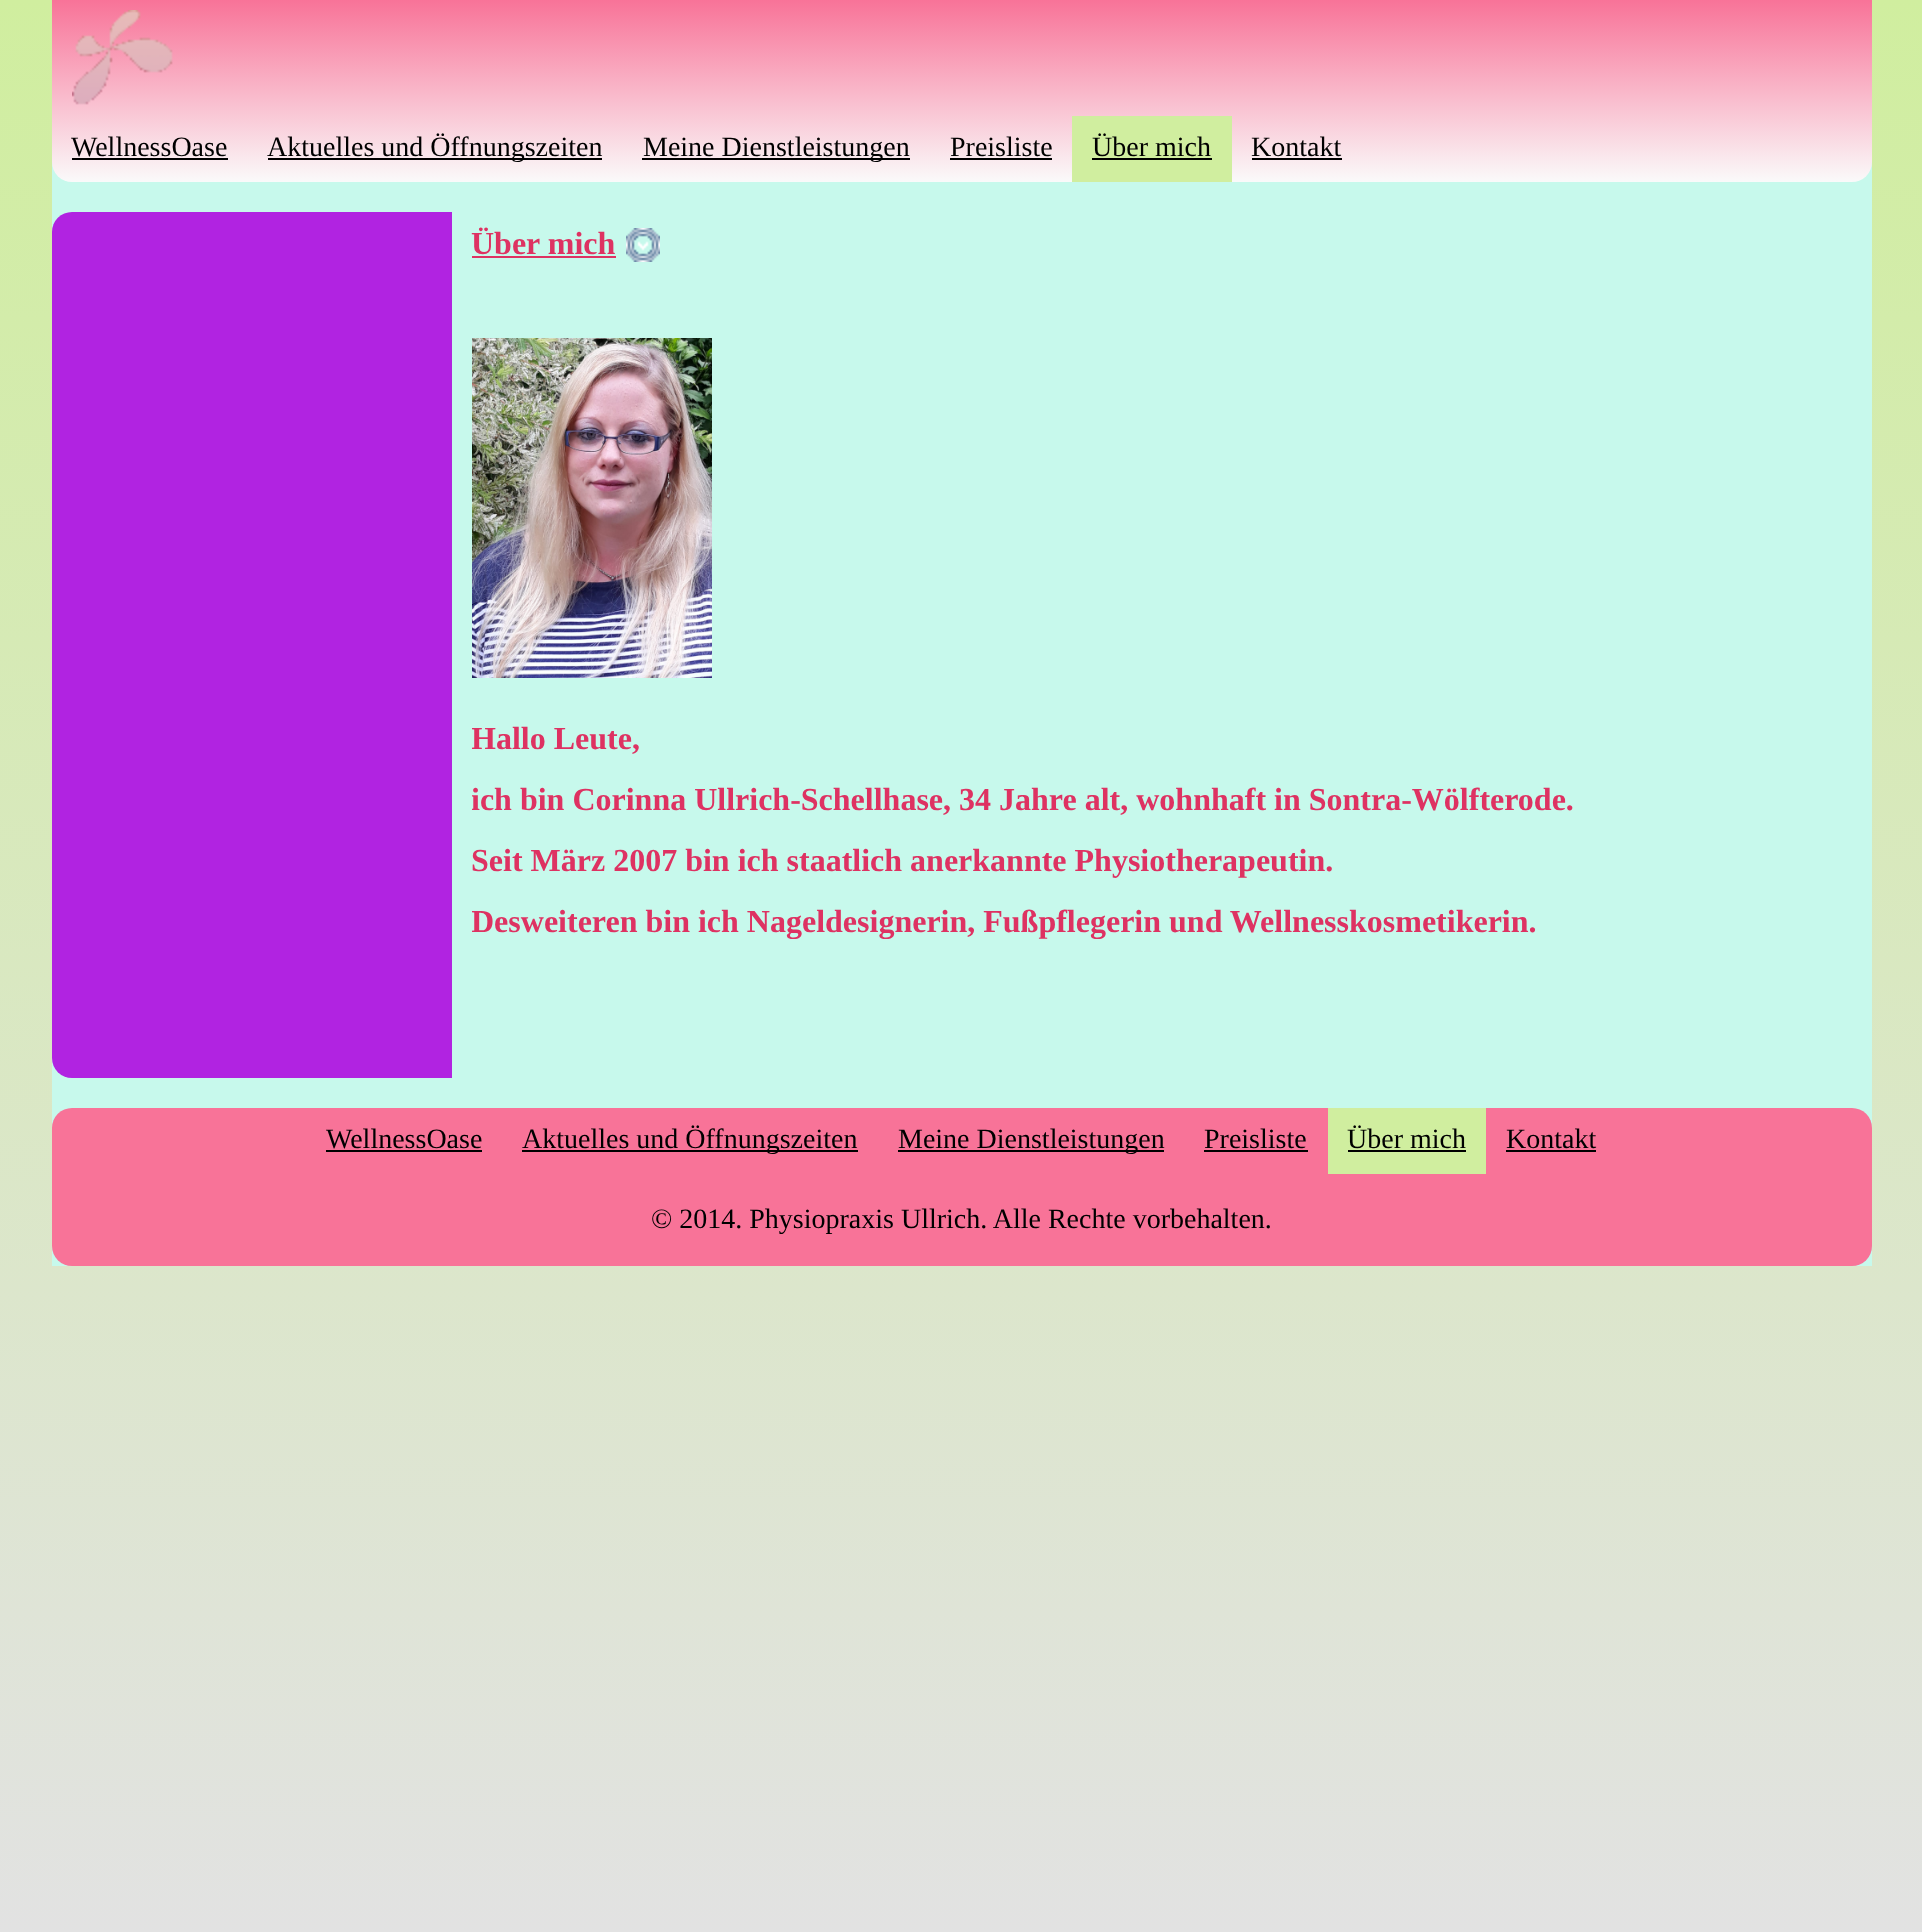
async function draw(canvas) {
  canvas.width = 1922
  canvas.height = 1932
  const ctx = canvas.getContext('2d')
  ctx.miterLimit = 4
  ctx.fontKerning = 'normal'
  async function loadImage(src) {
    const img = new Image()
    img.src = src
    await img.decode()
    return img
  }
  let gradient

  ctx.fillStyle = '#fff'
  ctx.fillRect(0, 0, 1922, 1932)
  gradient = ctx.createLinearGradient(961, 1932, 961, 0)
  gradient.addColorStop(0, '#e2e2e2')
  gradient.addColorStop(1, '#d0ee9f')
  ctx.fillStyle = gradient
  ctx.fillRect(0, 0, 1922, 1932)
  ctx.fillStyle = '#c7f9ec'
  ctx.fillRect(52, 162, 1820, 1104)
  gradient = ctx.createLinearGradient(962, 182, 962, 0)
  gradient.addColorStop(0, '#fafafa')
  gradient.addColorStop(1, '#f87398')
  ctx.fillStyle = gradient
  ctx.beginPath()
  ctx.roundRect(52, 0, 1820, 182, [0, 0, 20, 20])
  ctx.fill()
  ctx.drawImage(await loadImage('image0.png'), 72, 10, 101, 95)
  ctx.font = '28px Liberation Serif'
  ctx.fillStyle = '#000'
  ctx.fillText('WellnessOase', 71, 156)
  ctx.fillRect(72, 158, 156, 2)
  ctx.fillRect(268, 158, 334, 2)
  ctx.fillText('Aktuelles und Öffnungszeiten', 267, 156)
  ctx.fillRect(642, 158, 268, 2)
  ctx.fillText('Meine Dienstleistungen', 643, 156)
  ctx.fillText('Preisliste', 950, 156)
  ctx.fillRect(950, 158, 102, 2)
  ctx.fillStyle = '#d0ee9f'
  ctx.fillRect(1072, 116, 160, 66)
  ctx.fillStyle = '#000'
  ctx.fillText('Über mich', 1092, 156)
  ctx.fillRect(1092, 158, 120, 2)
  ctx.fillText('Kontakt', 1251, 156)
  ctx.fillRect(1252, 158, 90, 2)
  ctx.fillStyle = '#b123e1'
  ctx.beginPath()
  ctx.roundRect(52, 212, 400, 866, [20, 0, 0, 20])
  ctx.fill()
  ctx.font = 'bold 32px Liberation Serif'
  ctx.fillStyle = '#de3262'
  ctx.fillText('Über mich', 471, 254)
  ctx.fillRect(472, 256, 144, 2)
  ctx.drawImage(await loadImage('image1.png'), 626, 228, 34, 34)
  ctx.drawImage(await loadImage('image2.png'), 472, 338, 240, 340)
  ctx.save()
  ctx.beginPath()
  ctx.rect(472, 222, 1380, 846)
  ctx.clip()
  ctx.fillText('Hallo Leute,', 471, 749)
  ctx.fillText('ich bin Corinna Ullrich-Schellhase, 34 Jahre alt, wohnhaft in Sontra-Wölfterode.', 471, 810)
  ctx.restore()
  ctx.fillText('Seit März 2007 bin ich staatlich anerkannte Physiotherapeutin.', 471, 871)
  ctx.save()
  ctx.beginPath()
  ctx.rect(472, 222, 1380, 846)
  ctx.clip()
  ctx.fillText('Desweiteren bin ich Nageldesignerin, Fußpflegerin und Wellnesskosmetikerin.', 471, 932)
  ctx.restore()
  ctx.fillStyle = '#f87398'
  ctx.beginPath()
  ctx.roundRect(52, 1108, 1820, 158, 20)
  ctx.fill()
  ctx.font = '28px Liberation Serif'
  ctx.fillStyle = '#000'
  ctx.fillText('WellnessOase', 326, 1148)
  ctx.fillRect(326, 1150, 156, 2)
  ctx.fillRect(522, 1150, 336, 2)
  ctx.fillText('Aktuelles und Öffnungszeiten', 522, 1148)
  ctx.fillRect(898, 1150, 266, 2)
  ctx.fillText('Meine Dienstleistungen', 898, 1148)
  ctx.fillText('Preisliste', 1204, 1148)
  ctx.fillRect(1204, 1150, 104, 2)
  ctx.fillStyle = '#d0ee9f'
  ctx.fillRect(1328, 1108, 158, 66)
  ctx.fillStyle = '#000'
  ctx.fillText('Über mich', 1347, 1148)
  ctx.fillRect(1348, 1150, 118, 2)
  ctx.fillText('Kontakt', 1506, 1148)
  ctx.fillRect(1506, 1150, 90, 2)
  ctx.fillText('© 2014. Physiopraxis Ullrich. Alle Rechte vorbehalten.', 651, 1228)
}

draw(document.querySelector('canvas'))
